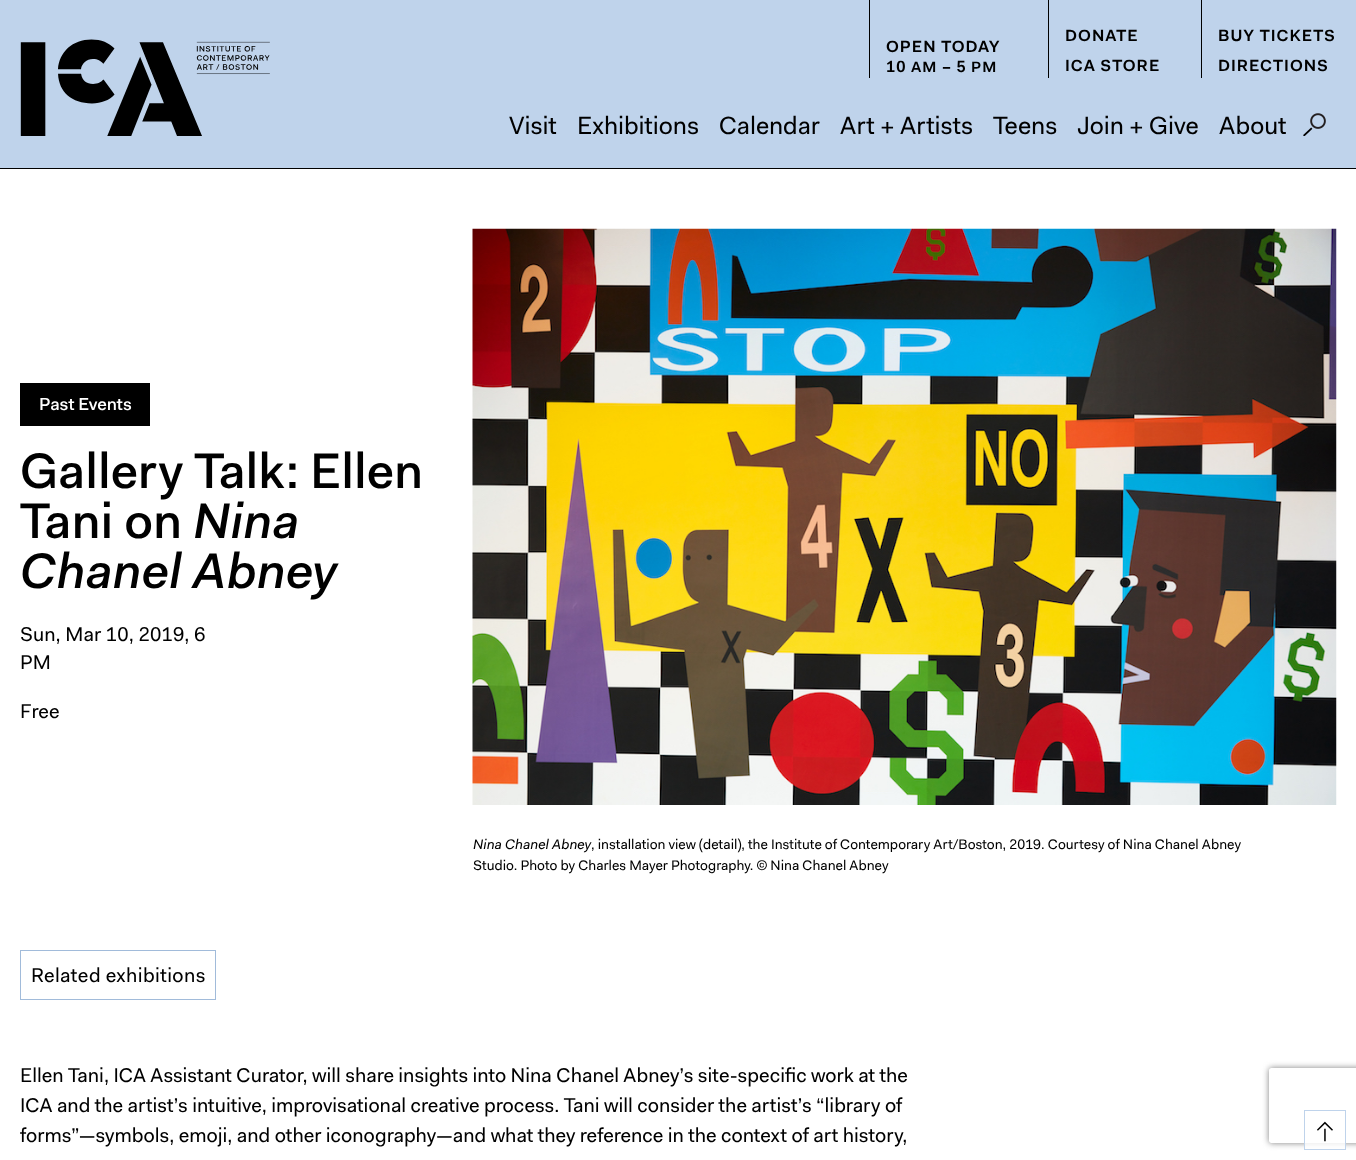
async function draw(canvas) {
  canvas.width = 1356
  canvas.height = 1160
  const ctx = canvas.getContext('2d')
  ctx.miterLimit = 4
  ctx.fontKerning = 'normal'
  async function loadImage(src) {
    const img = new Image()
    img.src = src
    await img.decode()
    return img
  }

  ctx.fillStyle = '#fff'
  ctx.fillRect(0, 0, 1356, 1160)
  ctx.fillStyle = '#bfd3eb'
  ctx.fillRect(0, 0, 1356, 168)
  ctx.fillStyle = '#000'
  ctx.fillRect(0, 168, 1356, 1)
  ctx.drawImage(await loadImage('image0.png'), 20, 39, 250, 97)
  ctx.fillRect(869, 0, 1, 78)
  ctx.letterSpacing = '1px'
  ctx.font = '600 16.25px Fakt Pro'
  ctx.fillText('OPEN TODAY', 886, 52)
  ctx.fillText('10', 886, 72)
  ctx.font = '600 15px Fakt Pro'
  ctx.fillText('AM', 911, 72)
  ctx.font = '600 16.25px Fakt Pro'
  ctx.fillText('– 5', 942, 72)
  ctx.font = '600 15px Fakt Pro'
  ctx.fillText('PM', 971, 72)
  ctx.fillRect(1048, 0, 1, 78)
  ctx.font = '600 16.25px Fakt Pro'
  ctx.fillText('DONATE', 1065, 41)
  ctx.fillText('ICA STORE', 1065, 71)
  ctx.fillRect(1201, 0, 1, 78)
  ctx.fillText('BUY TICKETS', 1218, 41)
  ctx.fillText('DIRECTIONS', 1218, 71)
  ctx.letterSpacing = '0px'
  ctx.font = '25px Fakt Pro'
  ctx.fillText('Visit', 509, 134)
  ctx.fillText('Exhibitions', 577, 134)
  ctx.fillText('Calendar', 719, 134)
  ctx.fillText('Art + Artists', 840, 134)
  ctx.fillText('Teens', 993, 134)
  ctx.fillText('Join + Give', 1077, 134)
  ctx.fillText('About', 1219, 134)
  ctx.drawImage(await loadImage('image1.png'), 1303, 113, 23, 23)
  ctx.fillRect(20, 383, 130, 43)
  ctx.font = '500 17.5px Fakt Pro'
  ctx.fillStyle = '#fff'
  ctx.fillText('Past Events', 39, 410)
  ctx.font = '500 50px Fakt Pro'
  ctx.fillStyle = '#000'
  ctx.fillText('Gallery Talk: Ellen', 20, 488)
  ctx.fillText('Tani on', 20, 538)
  ctx.font = 'italic 500 50px Fakt Pro'
  ctx.fillText('Nina', 193, 538)
  ctx.fillText('Chanel Abney', 20, 588)
  ctx.letterSpacing = '0.1px'
  ctx.font = '20px Fakt Pro'
  ctx.fillText('Sun, Mar 10, 2019, 6', 20, 641)
  ctx.fillText('PM', 20, 669)
  ctx.letterSpacing = '0px'
  ctx.fillText('Free', 20, 718)
  ctx.drawImage(await loadImage('image2.png'), 472, 228, 865, 577)
  ctx.font = 'italic 14px Fakt Pro'
  ctx.fillText('Nina Chanel Abney', 473, 849)
  ctx.font = '14px Fakt Pro'
  ctx.fillText(', installation view (detail), the Institute of Contemporary Art/Boston, 2019. Courtesy of Nina Chanel Abney', 591, 849)
  ctx.fillText('Studio. Photo by Charles Mayer Photography. © Nina Chanel Abney', 473, 870)
  ctx.strokeStyle = '#a1bbda'
  ctx.strokeRect(20.5, 950.5, 195, 49)
  ctx.letterSpacing = '0.4px'
  ctx.font = '20px Fakt Pro'
  ctx.fillText('Related exhibitions', 31, 982)
  ctx.letterSpacing = '0px'
  ctx.fillText('Ellen Tani, ICA Assistant Curator, will share insights into Nina Chanel Abney’s site-specific work at the', 20, 1082)
  ctx.fillText('ICA and the artist’s intuitive, improvisational creative process. Tani will consider the artist’s “library of', 20, 1112)
  ctx.fillText('forms”—symbols, emoji, and other iconography—and what they reference in the context of art history,', 20, 1142)
  ctx.save()
  ctx.beginPath()
  ctx.moveTo(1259, 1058)
  ctx.lineTo(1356, 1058)
  ctx.lineTo(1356, 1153)
  ctx.lineTo(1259, 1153)
  ctx.closePath()
  ctx.moveTo(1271.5, 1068)
  ctx.lineTo(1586.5, 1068)
  ctx.bezierCurveTo(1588, 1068, 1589, 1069, 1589, 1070.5)
  ctx.lineTo(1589, 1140.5)
  ctx.bezierCurveTo(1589, 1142, 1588, 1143, 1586.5, 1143)
  ctx.lineTo(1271.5, 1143)
  ctx.bezierCurveTo(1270, 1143, 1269, 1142, 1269, 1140.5)
  ctx.lineTo(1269, 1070.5)
  ctx.bezierCurveTo(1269, 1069, 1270, 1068, 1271.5, 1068)
  ctx.closePath()
  ctx.clip('evenodd')
  ctx.fillStyle = '#808080'
  ctx.filter = 'blur(3px)'
  ctx.beginPath()
  ctx.roundRect(1269, 1068, 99, 75, 2.5)
  ctx.fill()
  ctx.filter = 'none'
  ctx.restore()
  ctx.fillStyle = '#ffffffcc'
  ctx.fillRect(1305, 1142, 40, 7)
  ctx.strokeStyle = '#bfd3eb'
  ctx.strokeRect(1304.5, 1110.5, 41, 39)
  ctx.drawImage(await loadImage('image3.png'), 1317, 1121, 16, 21)
}

draw(document.querySelector('canvas'))
